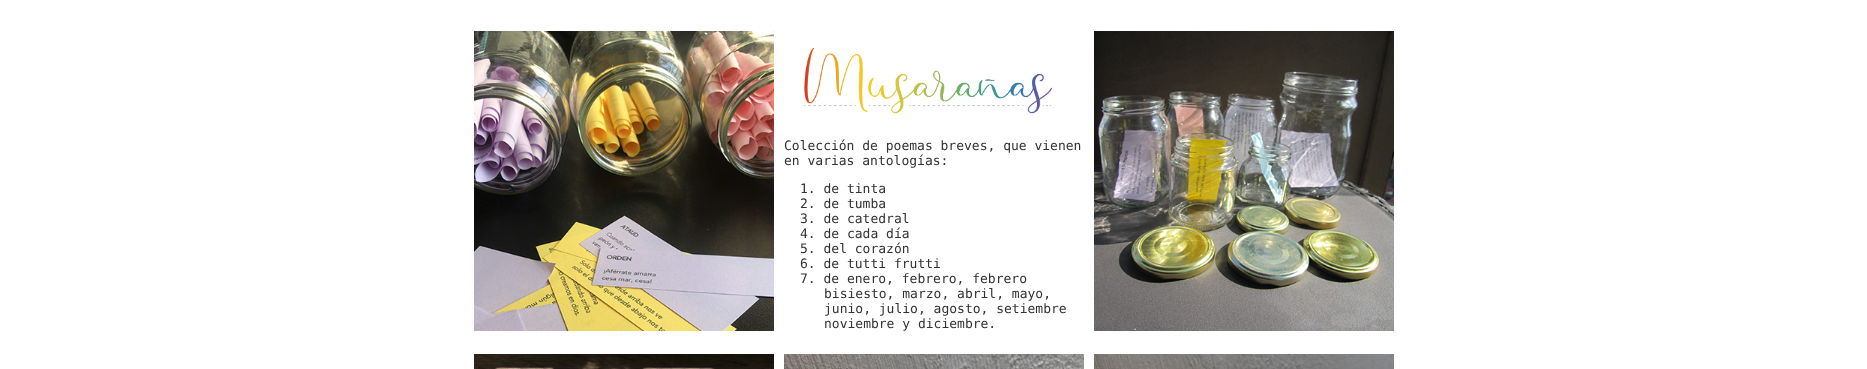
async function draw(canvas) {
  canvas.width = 1867
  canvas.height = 369
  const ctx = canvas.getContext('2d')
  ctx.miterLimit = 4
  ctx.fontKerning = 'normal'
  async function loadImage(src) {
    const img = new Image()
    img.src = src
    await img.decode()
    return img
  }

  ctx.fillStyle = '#fff'
  ctx.fillRect(0, 0, 1867, 369)
  ctx.drawImage(await loadImage('image0.png'), 474, 31, 300, 300)
  ctx.drawImage(await loadImage('image1.png'), 804, 47, 248, 67)
  ctx.font = '13px DejaVu Sans Mono'
  ctx.fillStyle = '#333'
  ctx.fillText('Colección de poemas breves, que vienen', 784, 150)
  ctx.fillText('en varias antologías:', 784, 165)
  ctx.fillText('1. de tinta', 800, 193)
  ctx.fillText('2. de tumba', 800, 208)
  ctx.fillText('3. de catedral', 800, 223)
  ctx.fillText('4. de cada día', 800, 238)
  ctx.fillText('5. del corazón', 800, 253)
  ctx.fillText('6. de tutti frutti', 800, 268)
  ctx.fillText('7. de enero, febrero, febrero', 800, 283)
  ctx.fillText('bisiesto, marzo, abril, mayo,', 824, 298)
  ctx.fillText('junio, julio, agosto, setiembre', 824, 313)
  ctx.fillText('noviembre y diciembre.', 824, 328)
  ctx.drawImage(await loadImage('image2.png'), 1094, 31, 300, 300)
  ctx.drawImage(await loadImage('image3.png'), 474, 354, 300, 15)
  ctx.drawImage(await loadImage('image4.png'), 784, 354, 300, 15)
  ctx.drawImage(await loadImage('image5.png'), 1094, 354, 300, 15)
}

draw(document.querySelector('canvas'))
